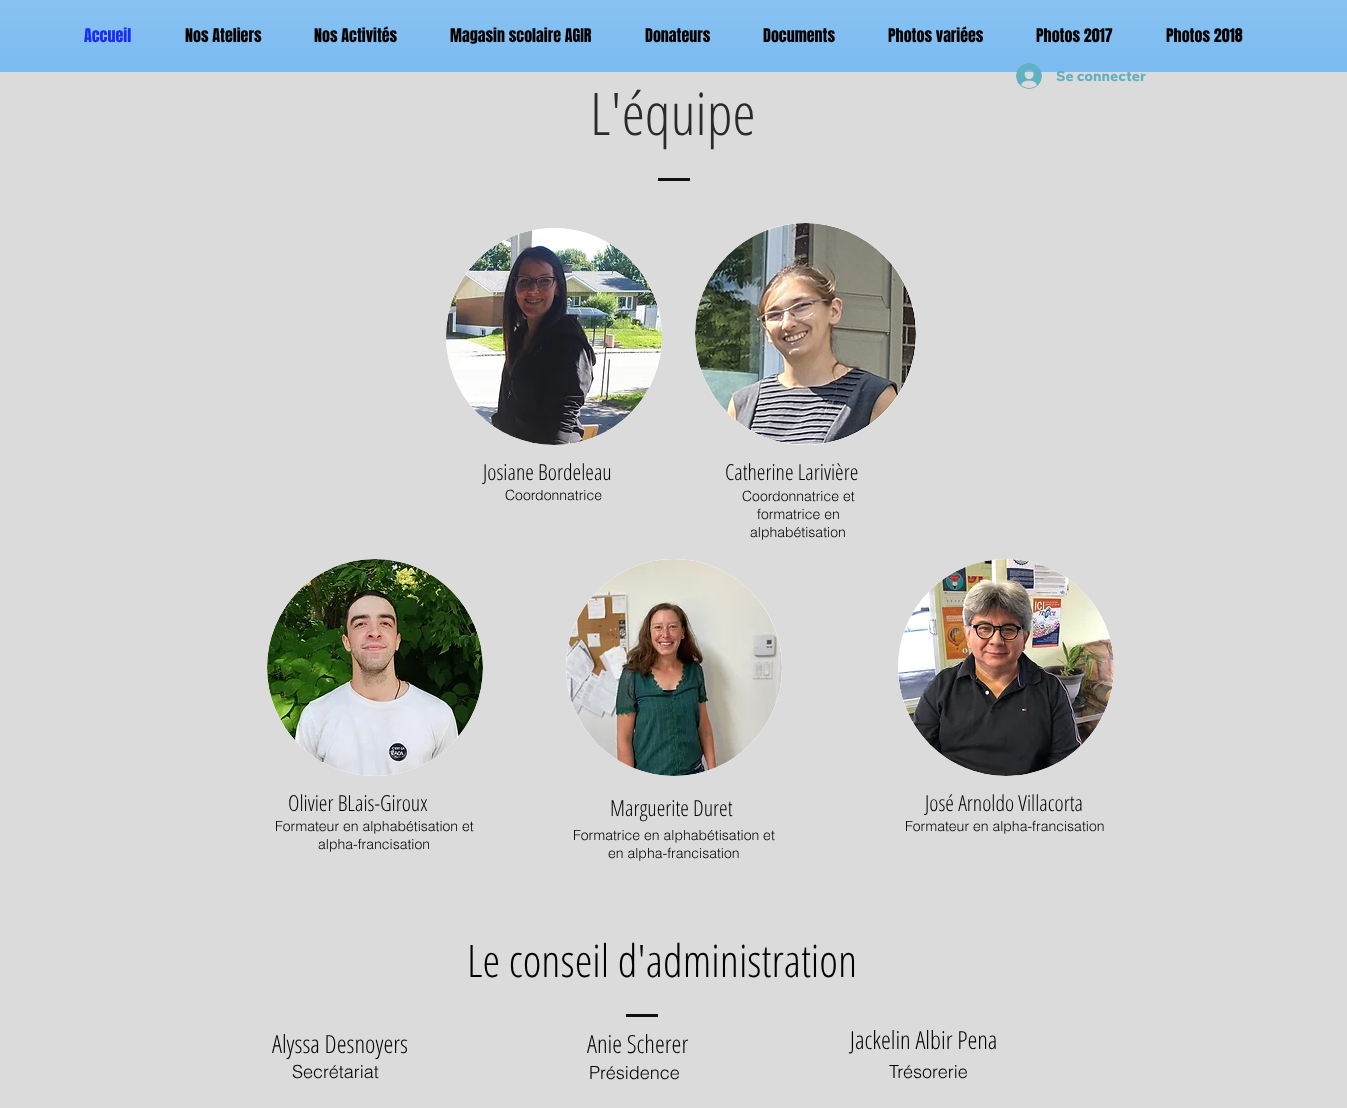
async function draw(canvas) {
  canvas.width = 1347
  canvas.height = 1108
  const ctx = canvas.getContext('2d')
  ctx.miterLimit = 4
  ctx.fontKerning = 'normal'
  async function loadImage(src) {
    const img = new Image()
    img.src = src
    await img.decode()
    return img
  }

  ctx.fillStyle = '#dbdbdb'
  ctx.fillRect(0, 0, 1347, 1108)
  ctx.fillStyle = '#5eaced'
  ctx.fillRect(0, 0, 1347, 72)
  ctx.drawImage(await loadImage('image0.png'), 0, 0, 1347, 72)
  ctx.font = '16px Anton'
  ctx.fillStyle = '#1a2df3'
  ctx.fillText('Accueil', 84, 42)
  ctx.fillStyle = '#000'
  ctx.fillText('Nos Ateliers', 185, 42)
  ctx.fillText('Nos Activités', 314, 42)
  ctx.fillText('Magasin scolaire AGIR', 450, 42)
  ctx.fillText('Donateurs', 645, 42)
  ctx.fillText('Documents', 763, 42)
  ctx.fillText('Photos variées', 888, 42)
  ctx.fillText('Photos 2017', 1036, 42)
  ctx.fillText('Photos 2018', 1166, 42)
  ctx.drawImage(await loadImage('image1.png'), 1016, 63, 26, 26)
  ctx.font = '800 14px Wix Madefor Text'
  ctx.fillStyle = '#60b1c1'
  ctx.fillText('Se connecter', 1056, 81)
  ctx.font = '300 59px Open Sans Condensed'
  ctx.fillStyle = '#2a2a2a'
  ctx.fillText('L\'équipe', 590, 135)
  ctx.fillStyle = '#0f0f0f'
  ctx.fillRect(658, 178, 32, 3)
  ctx.fillStyle = '#fff'
  ctx.beginPath()
  ctx.roundRect(695, 223, 221, 222, 110.5)
  ctx.fill()
  ctx.drawImage(await loadImage('image2.png'), 695, 223, 221, 222)
  ctx.beginPath()
  ctx.roundRect(446, 228, 216, 217, 108)
  ctx.fill()
  ctx.drawImage(await loadImage('image3.png'), 446, 228, 216, 217)
  ctx.font = '300 22px Open Sans Condensed'
  ctx.fillStyle = '#000'
  ctx.fillText('Josiane Bordeleau', 483, 480)
  ctx.font = '300 14px helvetica'
  ctx.fillText('Coordonnatrice', 505, 500)
  ctx.font = '300 22px Open Sans Condensed'
  ctx.fillText('Catherine Larivière', 725, 480)
  ctx.font = '300 14px helvetica'
  ctx.fillText('Coordonnatrice et', 742, 501)
  ctx.fillText('formatrice en', 757, 519)
  ctx.fillText('alphabétisation', 750, 537)
  ctx.fillStyle = '#fff'
  ctx.beginPath()
  ctx.roundRect(566, 559, 216, 217, 108)
  ctx.fill()
  ctx.drawImage(await loadImage('image4.png'), 566, 559, 216, 217)
  ctx.beginPath()
  ctx.roundRect(267, 559, 216, 217, 108)
  ctx.fill()
  ctx.drawImage(await loadImage('image5.png'), 267, 559, 216, 217)
  ctx.font = '300 22px Open Sans Condensed'
  ctx.fillStyle = '#000'
  ctx.fillText('Olivier BLais-Giroux', 288, 811)
  ctx.font = '300 14px helvetica'
  ctx.fillText('Formateur en alphabétisation et', 275, 831)
  ctx.fillText('alpha-francisation', 318, 849)
  ctx.font = '300 22px Open Sans Condensed'
  ctx.fillText('Marguerite Duret', 610, 816)
  ctx.fillStyle = '#fff'
  ctx.beginPath()
  ctx.roundRect(898, 559, 216, 217, 108)
  ctx.fill()
  ctx.drawImage(await loadImage('image6.png'), 898, 559, 216, 217)
  ctx.fillStyle = '#000'
  ctx.fillText('José Arnoldo Villacorta', 925, 811)
  ctx.font = '300 14px helvetica'
  ctx.fillText('Formateur en alpha-francisation', 905, 831)
  ctx.fillText('Formatrice en alphabétisation et', 573, 840)
  ctx.fillText('en alpha-francisation', 608, 858)
  ctx.font = '300 45px Open Sans Condensed'
  ctx.fillText('Le conseil d\'administration', 467, 977)
  ctx.fillStyle = '#0f0f0f'
  ctx.fillRect(626, 1014, 32, 3)
  ctx.font = '300 25px Open Sans Condensed'
  ctx.fillStyle = '#000'
  ctx.fillText('Alyssa Desnoyers', 272, 1053)
  ctx.fillText('Anie Scherer', 587, 1053)
  ctx.fillText('Jackelin Albir Pena', 850, 1049)
  ctx.font = '300 18px helvetica'
  ctx.fillText('Secrétariat', 292, 1078)
  ctx.fillText('Présidence', 589, 1079)
  ctx.fillText('Trésorerie', 889, 1078)
}

draw(document.querySelector('canvas'))
